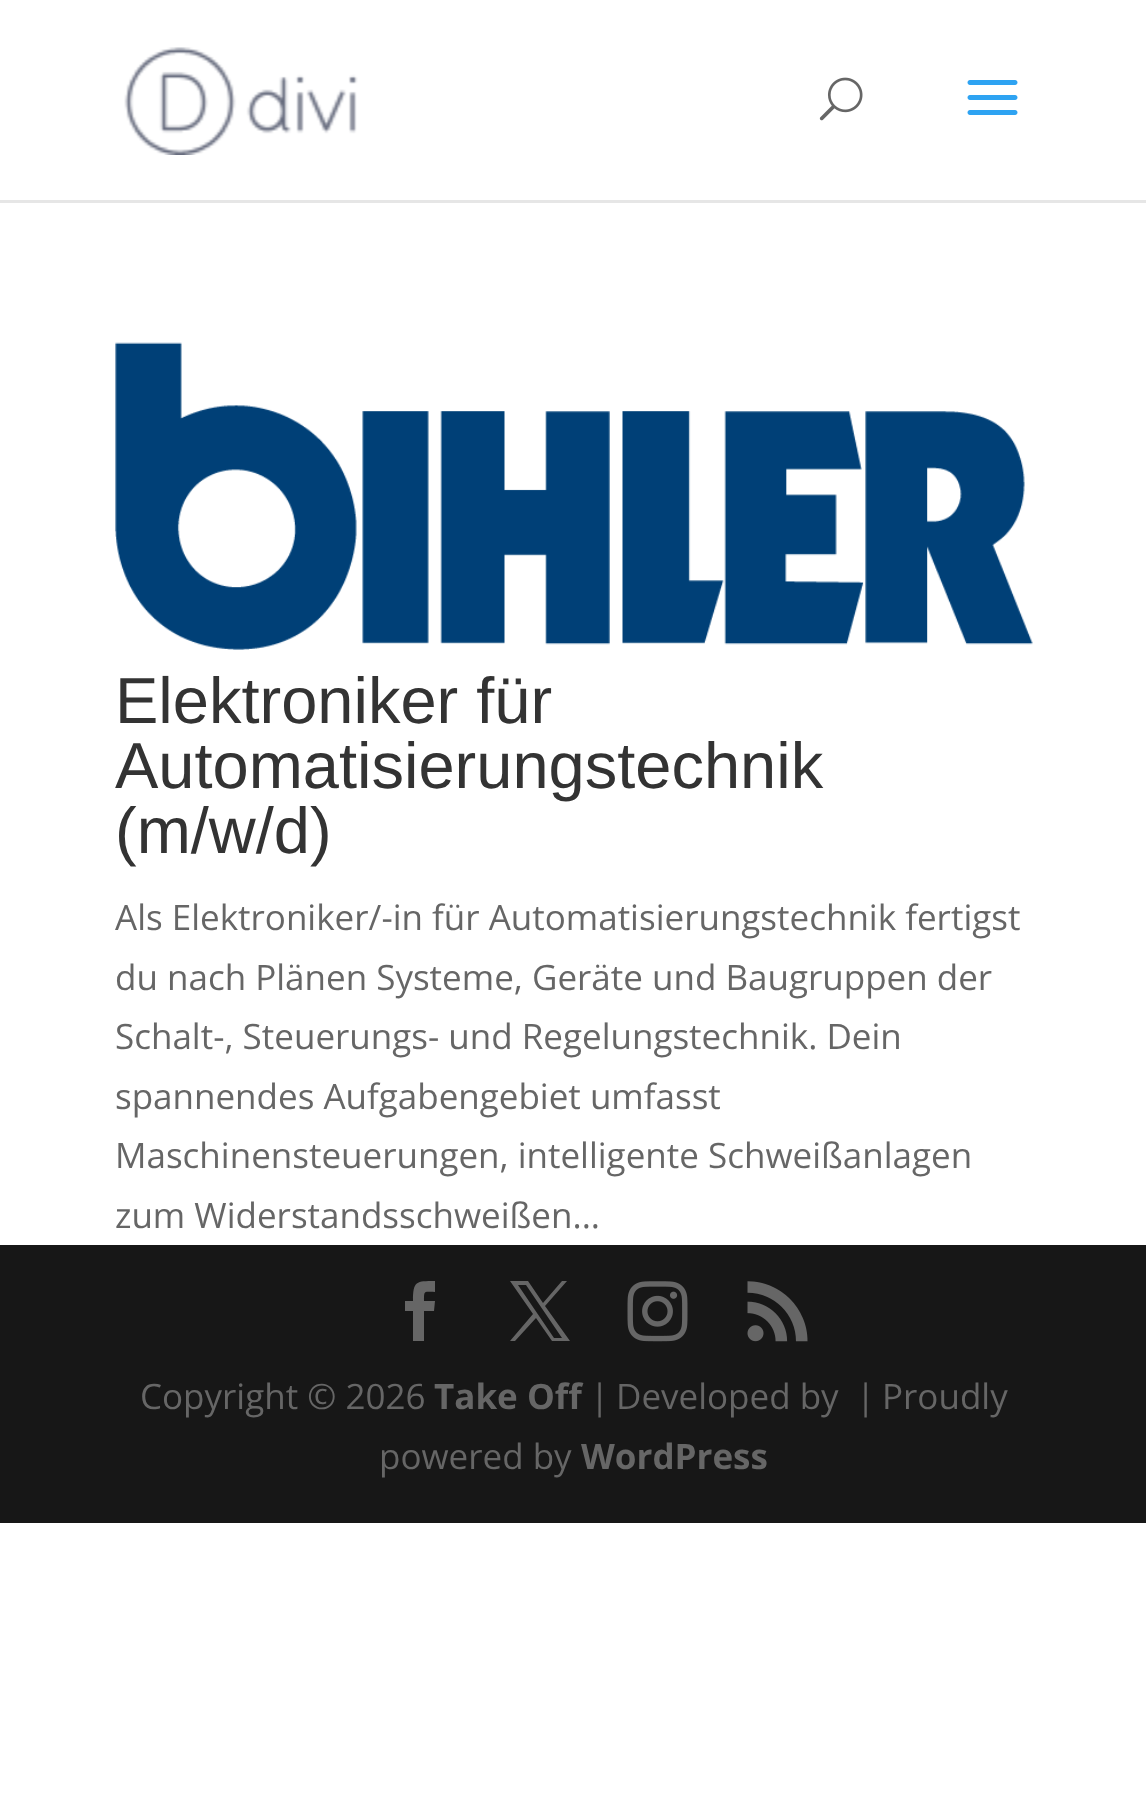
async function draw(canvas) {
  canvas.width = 1146
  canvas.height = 1803
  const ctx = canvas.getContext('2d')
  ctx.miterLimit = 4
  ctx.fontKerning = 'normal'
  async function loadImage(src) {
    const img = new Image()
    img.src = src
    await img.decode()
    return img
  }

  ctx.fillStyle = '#fff'
  ctx.fillRect(0, 0, 1146, 1803)
  ctx.fillStyle = '#e6e6e6'
  ctx.beginPath()
  ctx.moveTo(0, 200)
  ctx.lineTo(0, 203)
  ctx.lineTo(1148, 203)
  ctx.lineTo(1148, 3)
  ctx.lineTo(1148, 200)
  ctx.closePath()
  ctx.fill()
  ctx.drawImage(await loadImage('image0.png'), 124, 47, 234, 108)
  ctx.drawImage(await loadImage('image1.png'), 819, 77, 44, 44)
  ctx.drawImage(await loadImage('image2.png'), 967, 80, 51, 35)
  ctx.drawImage(await loadImage('image3.png'), 115, 342, 918, 308)
  ctx.font = '65px Liberation Sans'
  ctx.fillStyle = '#333'
  ctx.fillText('Elektroniker für', 115, 723)
  ctx.fillText('Automatisierungstechnik', 115, 788)
  ctx.fillText('(m/w/d)', 115, 853)
  ctx.font = '35px Open Sans'
  ctx.fillStyle = '#666'
  ctx.fillText('Als Elektroniker/-in für Automatisierungstechnik fertigst', 115, 930)
  ctx.fillText('du nach Plänen Systeme, Geräte und Baugruppen der', 115, 990)
  ctx.fillText('Schalt-, Steuerungs- und Regelungstechnik. Dein', 115, 1049)
  ctx.fillText('spannendes Aufgabengebiet umfasst', 115, 1109)
  ctx.fillText('Maschinensteuerungen, intelligente Schweißanlagen', 115, 1168)
  ctx.fillText('zum Widerstandsschweißen...', 115, 1228)
  ctx.fillStyle = '#171717'
  ctx.fillRect(0, 1245, 1146, 278)
  ctx.fillStyle = '#666'
  ctx.beginPath()
  ctx.moveTo(413, 1341)
  ctx.lineTo(424, 1341)
  ctx.lineTo(424, 1311)
  ctx.lineTo(434, 1311)
  ctx.lineTo(435, 1301)
  ctx.lineTo(424, 1301)
  ctx.bezierCurveTo(424, 1290, 424, 1292, 435, 1292)
  ctx.lineTo(435, 1281)
  ctx.bezierCurveTo(416, 1281, 413, 1281, 413, 1301)
  ctx.lineTo(405, 1301)
  ctx.lineTo(405, 1311)
  ctx.lineTo(413, 1311)
  ctx.closePath()
  ctx.fill()
  ctx.beginPath()
  ctx.moveTo(510, 1281)
  ctx.lineTo(533, 1314)
  ctx.lineTo(510, 1341)
  ctx.lineTo(515, 1341)
  ctx.lineTo(536, 1318)
  ctx.lineTo(552, 1341)
  ctx.lineTo(570, 1341)
  ctx.lineTo(545, 1306)
  ctx.lineTo(567, 1281)
  ctx.lineTo(562, 1281)
  ctx.lineTo(543, 1303)
  ctx.lineTo(528, 1281)
  ctx.closePath()
  ctx.moveTo(518, 1285)
  ctx.lineTo(526, 1285)
  ctx.lineTo(562, 1338)
  ctx.lineTo(554, 1338)
  ctx.closePath()
  ctx.fill()
  ctx.drawImage(await loadImage('image4.png'), 627, 1281, 61, 61)
  ctx.drawImage(await loadImage('image5.png'), 747, 1281, 61, 61)
  ctx.fillText('Copyright © 2026', 140, 1409)
  ctx.font = 'bold 35px Open Sans'
  ctx.fillText('Take Off', 434, 1409)
  ctx.font = '35px Open Sans'
  ctx.fillText('|', 590, 1409)
  ctx.fillText('Developed by', 616, 1409)
  ctx.fillText('|', 856, 1409)
  ctx.fillText('Proudly', 882, 1409)
  ctx.fillText('powered by', 379, 1469)
  ctx.font = 'bold 35px Open Sans'
  ctx.fillText('WordPress', 581, 1469)
}

draw(document.querySelector('canvas'))
